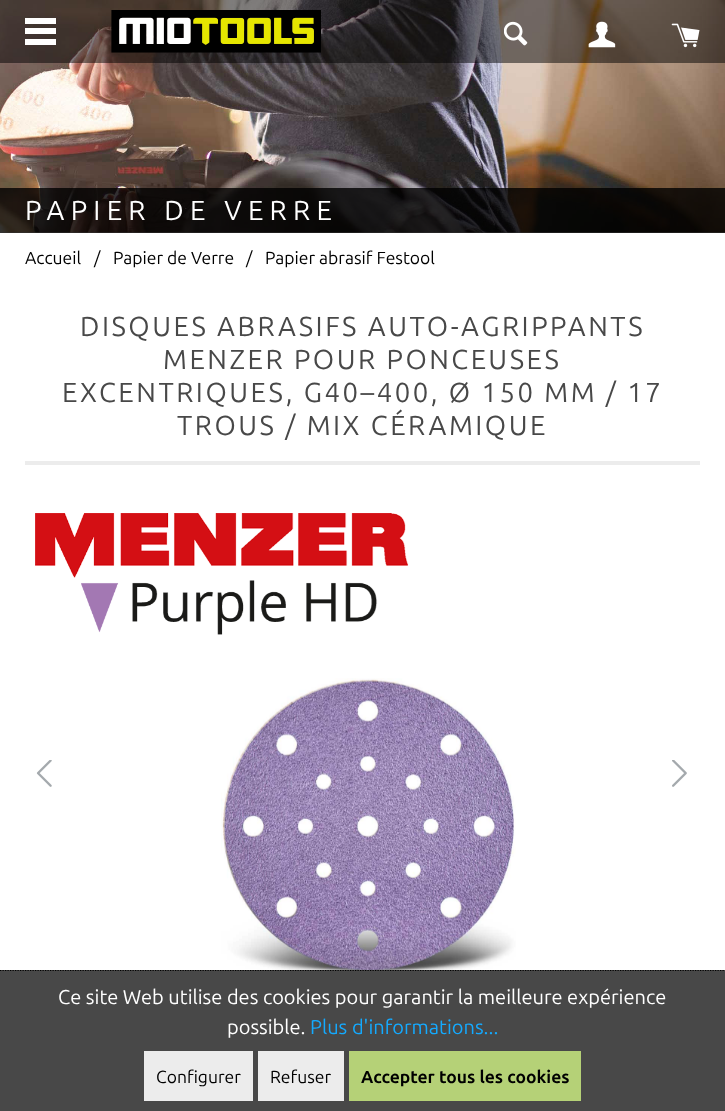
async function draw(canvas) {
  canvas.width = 725
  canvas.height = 1111
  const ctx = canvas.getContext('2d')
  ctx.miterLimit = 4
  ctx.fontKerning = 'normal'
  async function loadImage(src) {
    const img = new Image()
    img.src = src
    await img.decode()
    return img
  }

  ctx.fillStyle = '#fff'
  ctx.fillRect(0, 0, 725, 1111)
  ctx.drawImage(await loadImage('image0.png'), 0, 0, 725, 233)
  ctx.fillStyle = '#00000080'
  ctx.fillRect(0, 0, 725, 63)
  ctx.fillStyle = '#fff'
  ctx.fillRect(25, 18, 31, 6)
  ctx.fillRect(25, 28, 31, 6)
  ctx.fillRect(25, 39, 31, 6)
  ctx.drawImage(await loadImage('image1.png'), 111, 10, 210, 43)
  ctx.drawImage(await loadImage('image2.png'), 504, 21, 24, 25)
  ctx.drawImage(await loadImage('image3.png'), 588, 21, 28, 27)
  ctx.drawImage(await loadImage('image4.png'), 671, 23, 29, 25)
  ctx.fillStyle = '#000000cc'
  ctx.fillRect(0, 188, 725, 45)
  ctx.letterSpacing = '6.25px'
  ctx.font = '27.5px Ubuntu'
  ctx.fillStyle = '#fff'
  ctx.fillText('PAPIER DE VERRE', 25, 220)
  ctx.letterSpacing = '0px'
  ctx.font = '17.5px Ubuntu'
  ctx.fillStyle = '#000'
  ctx.fillText('Accueil', 25, 264)
  ctx.fillText('/', 94, 264)
  ctx.fillText('Papier de Verre', 113, 264)
  ctx.fillText('/', 246, 264)
  ctx.fillText('Papier abrasif Festool', 265, 264)
  ctx.fillStyle = '#ececec'
  ctx.fillRect(25, 461, 675, 4)
  ctx.letterSpacing = '2.5px'
  ctx.font = '27.5px Ubuntu'
  ctx.fillStyle = '#484848'
  ctx.fillText('DISQUES ABRASIFS AUTO-AGRIPPANTS', 80, 336)
  ctx.fillText('MENZER POUR PONCEUSES', 163, 369)
  ctx.fillText('EXCENTRIQUES, G40–400, Ø 150 MM / 17', 62, 402)
  ctx.fillText('TROUS / MIX CÉRAMIQUE', 177, 435)
  ctx.drawImage(await loadImage('image5.png'), 35, 513, 374, 122)
  ctx.drawImage(await loadImage('image6.png'), 221, 678, 295, 292)
  ctx.drawImage(await loadImage('image7.png'), 36, 760, 16, 27)
  ctx.drawImage(await loadImage('image8.png'), 672, 760, 15, 27)
  ctx.fillRect(0, 970, 725, 141)
  ctx.beginPath()
  ctx.moveTo(0, 970.5)
  ctx.lineTo(725, 970.5)
  ctx.strokeStyle = '#000'
  ctx.lineWidth = 1.2
  ctx.setLineDash([1.25, 1.25])
  ctx.stroke()
  ctx.letterSpacing = '0px'
  ctx.font = '20px Ubuntu'
  ctx.fillStyle = '#fff'
  ctx.fillText('Ce site Web utilise des cookies pour garantir la meilleure expérience', 58, 1004)
  ctx.fillText('possible.', 227, 1034)
  ctx.fillStyle = '#14aaff'
  ctx.fillText('Plus d\'informations...', 310, 1034)
  ctx.fillStyle = '#ececec'
  ctx.fillRect(144, 1051, 109, 50)
  ctx.font = '17.5px Ubuntu'
  ctx.fillStyle = '#000'
  ctx.fillText('Configurer', 156, 1083)
  ctx.fillStyle = '#ececec'
  ctx.fillRect(258, 1051, 86, 50)
  ctx.fillStyle = '#000'
  ctx.fillText('Refuser', 270, 1083)
  ctx.fillStyle = '#b5d177'
  ctx.fillRect(349, 1051, 232, 50)
  ctx.font = 'bold 17.5px Ubuntu'
  ctx.fillStyle = '#000'
  ctx.fillText('Accepter tous les cookies', 361, 1083)
}

draw(document.querySelector('canvas'))
